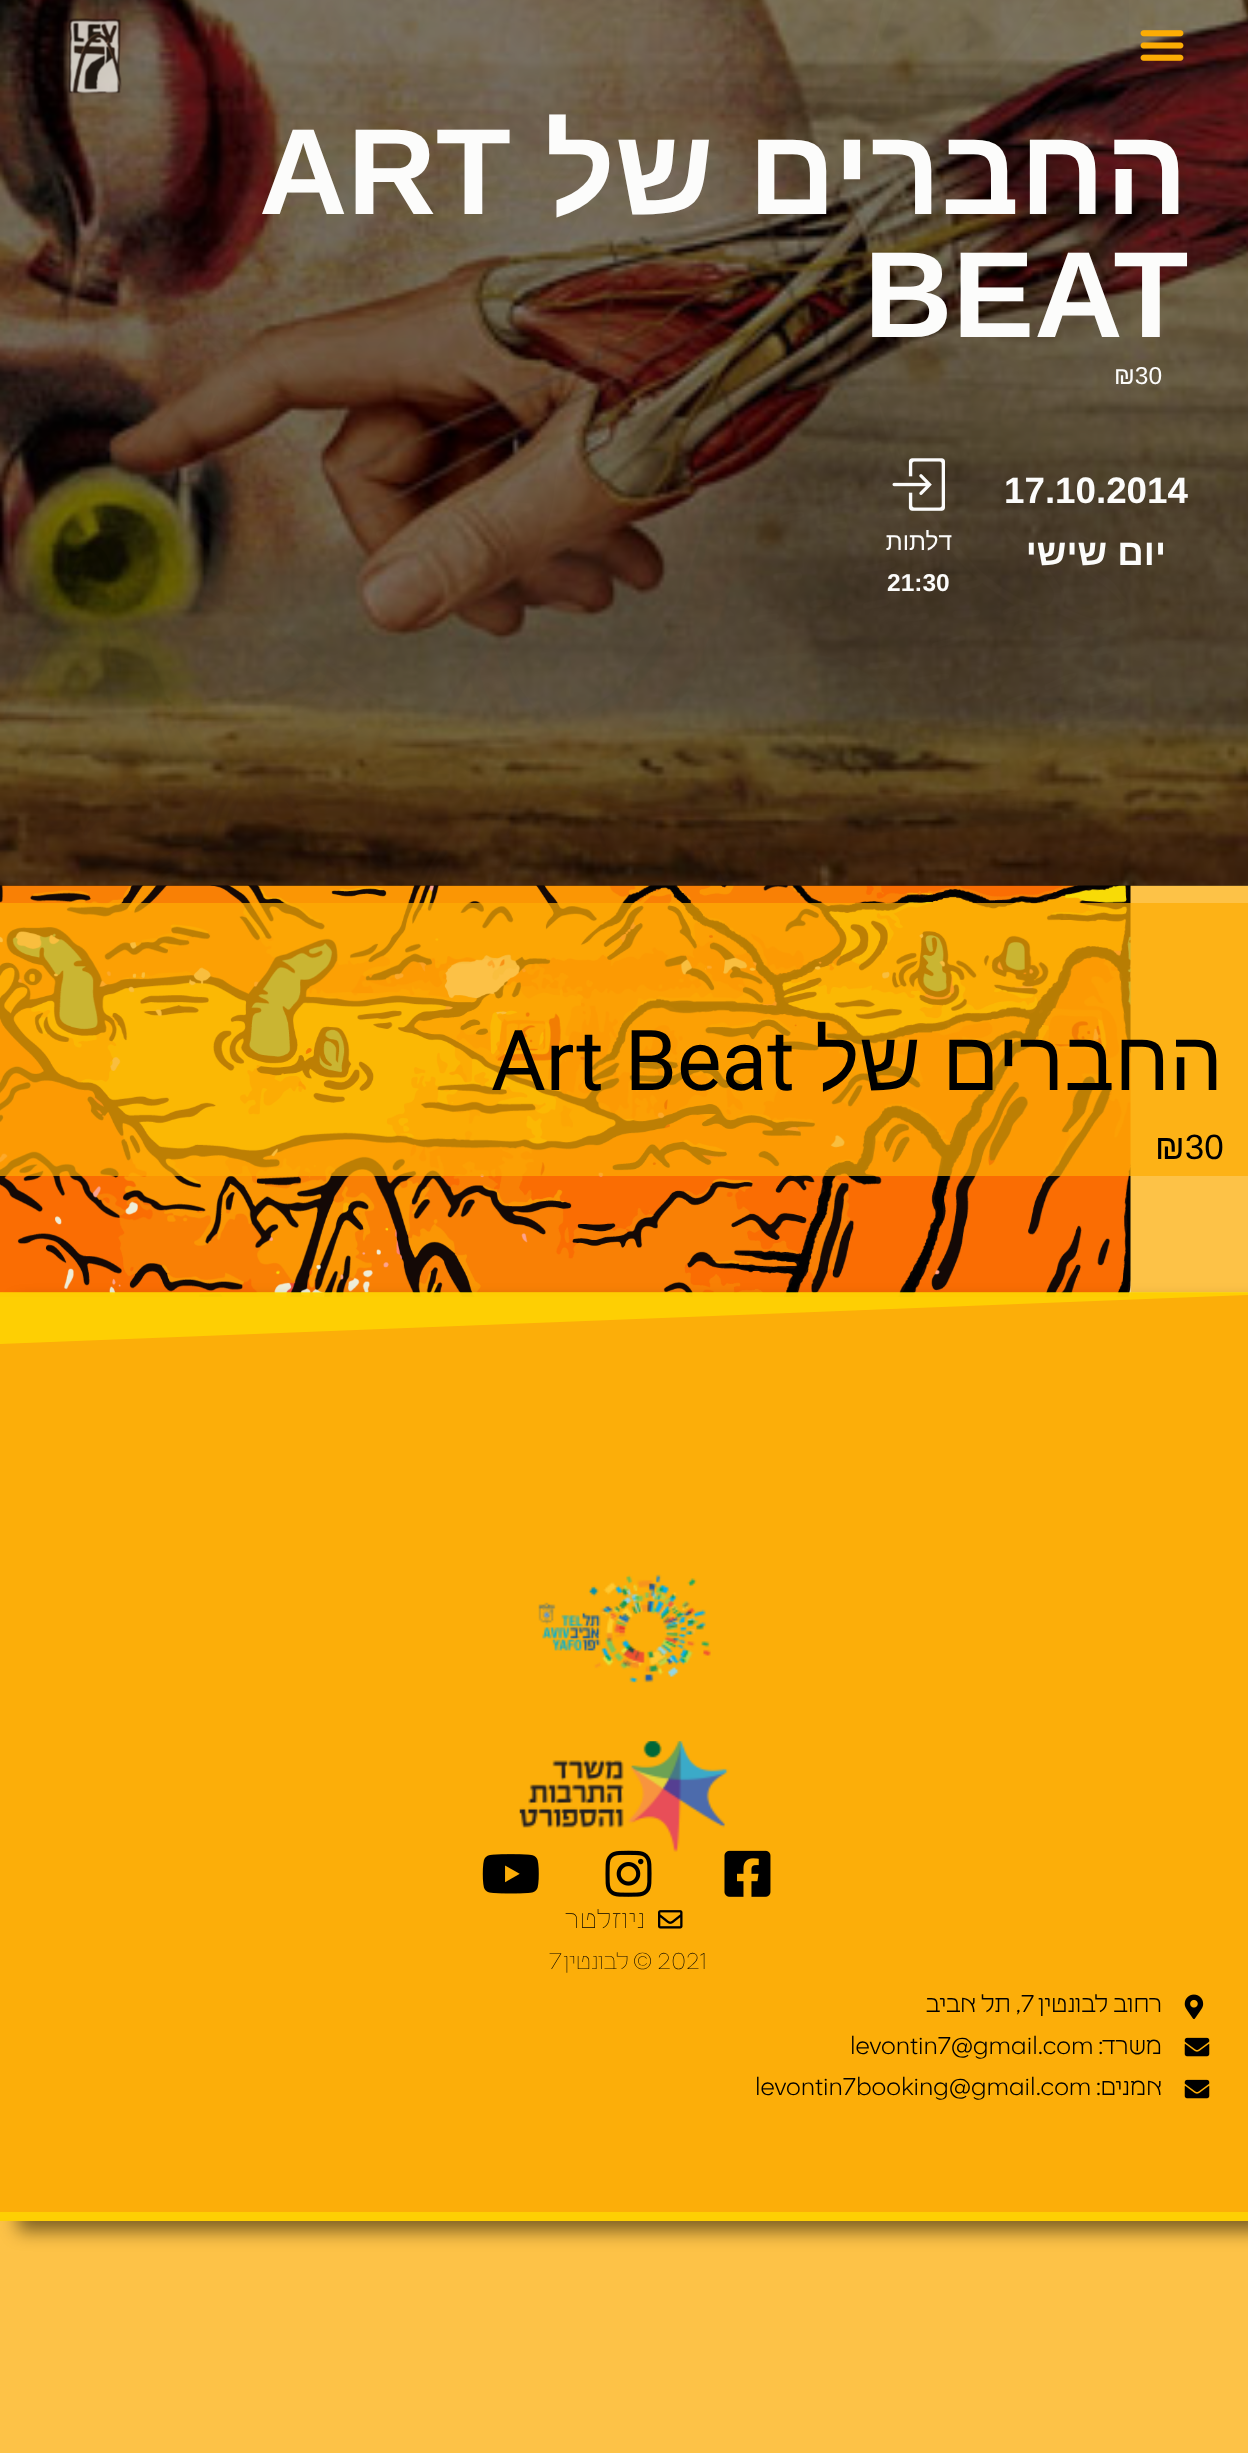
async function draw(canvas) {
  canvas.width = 1248
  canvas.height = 2453
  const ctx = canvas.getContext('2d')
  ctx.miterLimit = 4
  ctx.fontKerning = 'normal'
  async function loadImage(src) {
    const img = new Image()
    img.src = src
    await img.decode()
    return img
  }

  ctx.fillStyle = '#fdc247'
  ctx.fillRect(0, 0, 1248, 2453)
  ctx.drawImage(await loadImage('image0.png'), 0, 0, 1131, 1297)
  ctx.drawImage(await loadImage('image3.png'), 0, 0, 1248, 886)
  ctx.fillStyle = '#0000007d'
  ctx.fillRect(0, 0, 1248, 886)
  ctx.drawImage(await loadImage('image1.png'), 68, 18, 54, 76)
  ctx.drawImage(await loadImage('image2.png'), 1140, 30, 44, 31)
  ctx.font = 'bold 122.5px Liberation Sans'
  ctx.fillStyle = '#fcfcfb'
  ctx.fillText('ART', 259, 214)
  ctx.direction = 'rtl'
  ctx.fillText('החברים של', 1188, 214)
  ctx.direction = 'ltr'
  ctx.fillText('BEAT', 864, 337)
  ctx.font = '24.5px Liberation Sans'
  ctx.fillText('₪30', 1114, 384)
  ctx.drawImage(await loadImage('image4.png'), 892, 458, 53, 53)
  ctx.direction = 'rtl'
  ctx.fillText('דלתות', 952, 550)
  ctx.direction = 'ltr'
  ctx.font = 'bold 24.5px Liberation Sans'
  ctx.fillText('21:30', 887, 591)
  ctx.font = 'bold 36.75px Liberation Sans'
  ctx.fillText('17.10.2014', 1004, 503)
  ctx.direction = 'rtl'
  ctx.fillText('יום שישי', 1166, 565)
  ctx.fillStyle = '#fcac04ba'
  ctx.fillRect(0, 903, 1248, 273)
  ctx.direction = 'ltr'
  ctx.font = '84px Roboto'
  ctx.fillStyle = '#000'
  ctx.fillText('Art Beat', 491, 1090)
  ctx.wordSpacing = '-2px'
  ctx.direction = 'rtl'
  ctx.font = '84px Liberation Sans'
  ctx.fillText('החברים של', 1223, 1090)
  ctx.wordSpacing = '0px'
  ctx.direction = 'ltr'
  ctx.font = '35px Liberation Sans'
  ctx.fillText('₪30', 1155, 1159)
  ctx.save()
  ctx.beginPath()
  ctx.moveTo(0, 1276)
  ctx.lineTo(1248, 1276)
  ctx.lineTo(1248, 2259)
  ctx.lineTo(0, 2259)
  ctx.closePath()
  ctx.moveTo(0, 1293)
  ctx.lineTo(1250, 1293)
  ctx.lineTo(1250, 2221)
  ctx.lineTo(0, 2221)
  ctx.closePath()
  ctx.clip('evenodd')
  ctx.fillStyle = '#00000080'
  ctx.filter = 'blur(9px)'
  ctx.beginPath()
  ctx.rect(18, 1304, 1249, 927)
  ctx.fill()
  ctx.filter = 'none'
  ctx.restore()
  ctx.fillStyle = '#fcac04ed'
  ctx.fillRect(0, 1293, 1248, 919)
  ctx.fillStyle = '#fecf03'
  ctx.fillRect(0, 2212, 1248, 9)
  ctx.fillStyle = '#ffde01b0'
  ctx.beginPath()
  ctx.moveTo(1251, 1295)
  ctx.lineTo(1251, 1292)
  ctx.lineTo(-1, 1292)
  ctx.lineTo(-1, 1344)
  ctx.closePath()
  ctx.fill()
  ctx.drawImage(await loadImage('image5.png'), 538, 1574, 173, 109)
  ctx.drawImage(await loadImage('image6.png'), 519, 1741, 210, 111)
  ctx.drawImage(await loadImage('image7.png'), 482, 1854, 57, 40)
  ctx.drawImage(await loadImage('image8.png'), 605, 1850, 47, 47)
  ctx.drawImage(await loadImage('image9.png'), 724, 1850, 47, 47)
  ctx.letterSpacing = '0.75px'
  ctx.direction = 'rtl'
  ctx.font = '100 26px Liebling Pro'
  ctx.fillStyle = '#000'
  ctx.fillText('ניוזלטר', 646, 1928)
  ctx.drawImage(await loadImage('image10.png'), 658, 1910, 25, 19)
  ctx.letterSpacing = '0px'
  ctx.direction = 'ltr'
  ctx.font = '100 23px Liebling Pro'
  ctx.fillText('7', 549, 1969)
  ctx.direction = 'rtl'
  ctx.fillText('© לבונטין', 652, 1969)
  ctx.direction = 'ltr'
  ctx.fillText('2021', 657, 1969)
  ctx.direction = 'rtl'
  ctx.font = '300 24.5px Liebling Pro'
  ctx.fillText(', תל אביב', 1021, 2012)
  ctx.direction = 'ltr'
  ctx.fillText('7', 1021, 2012)
  ctx.direction = 'rtl'
  ctx.fillText('רחוב לבונטין', 1162, 2012)
  ctx.drawImage(await loadImage('image11.png'), 1184, 1994, 20, 25)
  ctx.direction = 'ltr'
  ctx.fillText('levontin7@gmail.com', 850, 2054)
  ctx.direction = 'rtl'
  ctx.fillText('משרד:', 1162, 2054)
  ctx.drawImage(await loadImage('image12.png'), 1184, 2037, 26, 20)
  ctx.direction = 'ltr'
  ctx.fillText('levontin7booking@gmail.com', 755, 2095)
  ctx.direction = 'rtl'
  ctx.fillText('אמנים:', 1162, 2095)
  ctx.drawImage(await loadImage('image12.png'), 1184, 2079, 26, 20)
}

draw(document.querySelector('canvas'))
